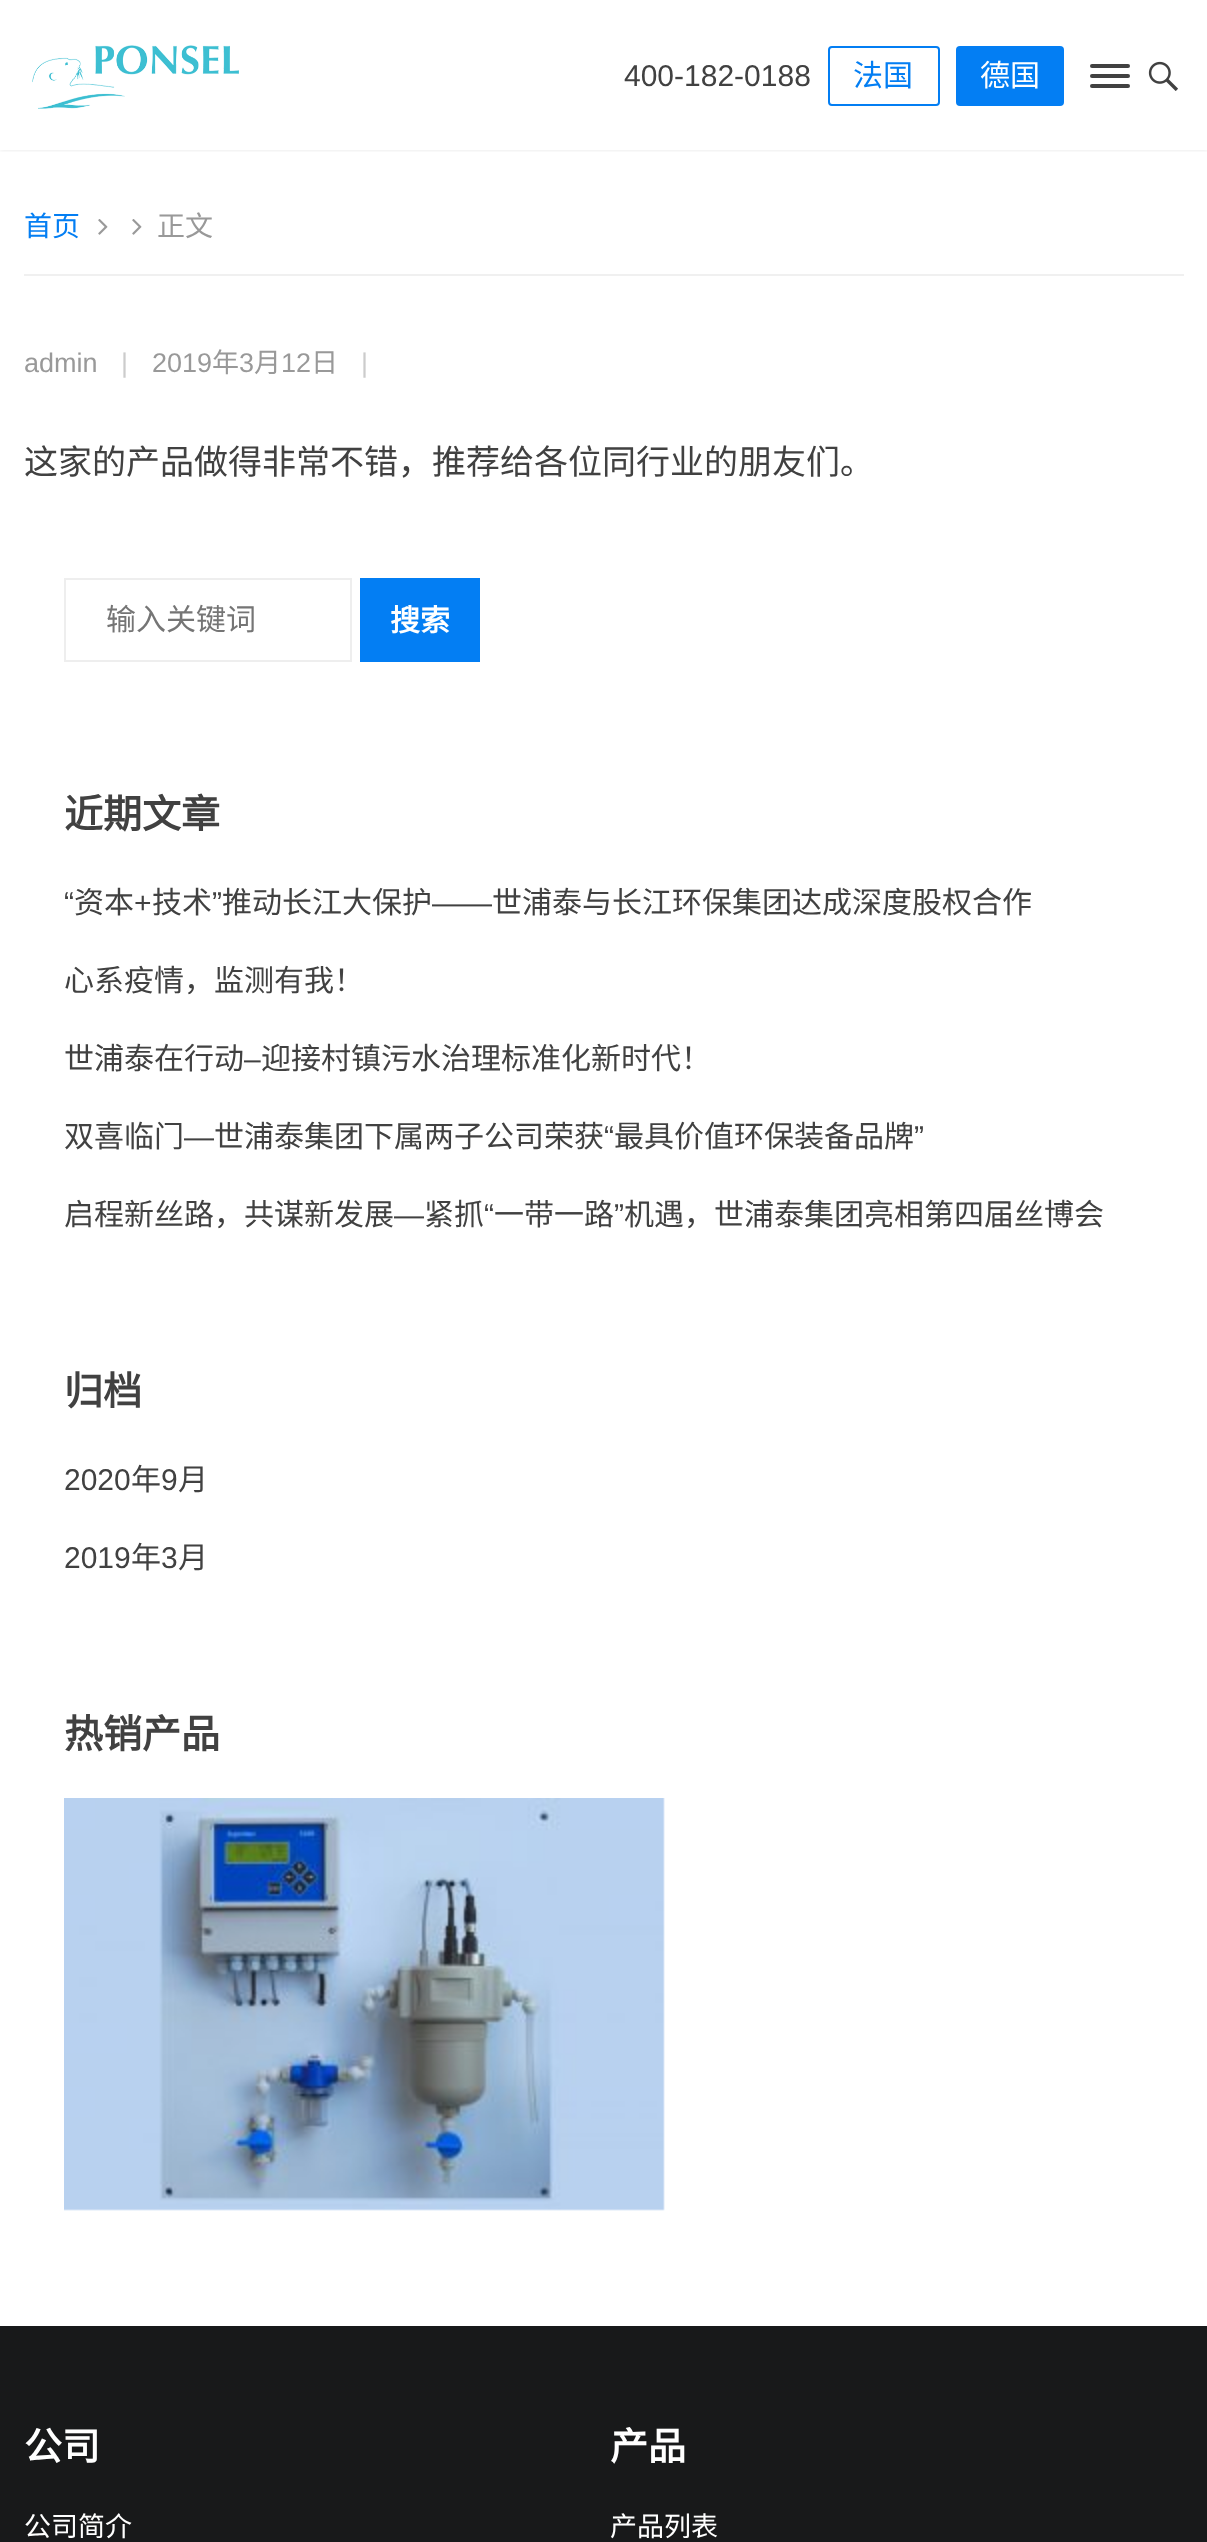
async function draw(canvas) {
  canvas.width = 1207
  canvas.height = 2542
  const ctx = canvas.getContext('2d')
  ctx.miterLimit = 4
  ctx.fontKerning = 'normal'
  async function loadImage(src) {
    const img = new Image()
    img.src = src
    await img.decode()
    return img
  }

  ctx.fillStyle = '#fff'
  ctx.fillRect(0, 0, 1207, 2542)
  ctx.save()
  ctx.beginPath()
  ctx.rect(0, 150, 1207, 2)
  ctx.clip()
  ctx.fillStyle = '#0000001a'
  ctx.filter = 'blur(2px)'
  ctx.beginPath()
  ctx.rect(0, 0, 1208, 150)
  ctx.fill()
  ctx.filter = 'none'
  ctx.restore()
  ctx.drawImage(await loadImage('image0.png'), 32, 45, 207, 64)
  ctx.font = '30px Liberation Sans'
  ctx.fillStyle = '#414141'
  ctx.fillText('400-182-0188', 624, 86)
  ctx.beginPath()
  ctx.roundRect(829, 47, 110, 58, 3)
  ctx.strokeStyle = '#037ef3'
  ctx.lineWidth = 2
  ctx.stroke()
  ctx.font = '30px Noto Sans CJK SC'
  ctx.fillStyle = '#037ef3'
  ctx.fillText('法国', 853, 86)
  ctx.beginPath()
  ctx.roundRect(956, 46, 108, 60, 4)
  ctx.fill()
  ctx.fillStyle = '#fff'
  ctx.fillText('德国', 980, 86)
  ctx.fillStyle = '#414141'
  ctx.beginPath()
  ctx.roundRect(1090, 64, 40, 4, 2)
  ctx.fill()
  ctx.beginPath()
  ctx.roundRect(1090, 74, 40, 4, 2)
  ctx.fill()
  ctx.beginPath()
  ctx.roundRect(1090, 84, 40, 4, 2)
  ctx.fill()
  ctx.drawImage(await loadImage('image1.png'), 1148, 61, 30, 30)
  ctx.fillStyle = '#f0f0f0'
  ctx.fillRect(24, 274, 1160, 2)
  ctx.font = '28px Noto Sans CJK SC'
  ctx.fillStyle = '#037ef3'
  ctx.fillText('首页', 24, 236)
  ctx.drawImage(await loadImage('image2.png'), 98, 219, 10, 16)
  ctx.drawImage(await loadImage('image2.png'), 132, 219, 10, 16)
  ctx.fillStyle = '#999'
  ctx.fillText('正文', 157, 236)
  ctx.font = '27px Liberation Sans'
  ctx.fillText('admin', 24, 372)
  ctx.fillStyle = '#ccc'
  ctx.fillText('|', 121, 372)
  ctx.fillStyle = '#999'
  ctx.fillText('2019', 152, 372)
  ctx.font = '27px Noto Sans CJK SC'
  ctx.fillText('年', 212, 372)
  ctx.font = '27px Liberation Sans'
  ctx.fillText('3', 239, 372)
  ctx.font = '27px Noto Sans CJK SC'
  ctx.fillText('月', 254, 372)
  ctx.font = '27px Liberation Sans'
  ctx.fillText('12', 281, 372)
  ctx.font = '27px Noto Sans CJK SC'
  ctx.fillText('日', 311, 372)
  ctx.font = '27px Liberation Sans'
  ctx.fillStyle = '#ccc'
  ctx.fillText('|', 361, 372)
  ctx.font = '34px Noto Sans CJK SC'
  ctx.fillStyle = '#414141'
  ctx.fillText('这家的产品做得非常不错，推荐给各位同行业的朋友们。', 24, 474)
  ctx.strokeStyle = '#eee'
  ctx.strokeRect(65, 579, 286, 82)
  ctx.font = '30px Noto Sans CJK SC'
  ctx.fillStyle = '#757575'
  ctx.fillText('输入关键词', 106, 630)
  ctx.fillStyle = '#037ef3'
  ctx.fillRect(360, 578, 120, 84)
  ctx.font = 'bold 30px Noto Sans CJK SC'
  ctx.fillStyle = '#fff'
  ctx.fillText('搜索', 390, 631)
  ctx.font = 'bold 39px Noto Sans CJK SC'
  ctx.fillStyle = '#414141'
  ctx.fillText('近期文章', 64, 828)
  ctx.font = '30px Liberation Sans'
  ctx.fillText('“', 64, 913)
  ctx.font = '30px Noto Sans CJK SC'
  ctx.fillText('资本', 74, 913)
  ctx.font = '30px Liberation Sans'
  ctx.fillText('+', 134, 913)
  ctx.font = '30px Noto Sans CJK SC'
  ctx.fillText('技术', 152, 913)
  ctx.font = '30px Liberation Sans'
  ctx.fillText('”', 212, 913)
  ctx.font = '30px Noto Sans CJK SC'
  ctx.fillText('推动长江大保护', 222, 913)
  ctx.font = '30px Liberation Sans'
  ctx.fillText('——', 432, 913)
  ctx.font = '30px Noto Sans CJK SC'
  ctx.fillText('世浦泰与长江环保集团达成深度股权合作', 492, 913)
  ctx.fillText('心系疫情，监测有我！', 64, 991)
  ctx.fillText('世浦泰在行动', 64, 1069)
  ctx.font = '30px Liberation Sans'
  ctx.fillText('–', 244, 1069)
  ctx.font = '30px Noto Sans CJK SC'
  ctx.fillText('迎接村镇污水治理标准化新时代！', 261, 1069)
  ctx.fillText('双喜临门', 64, 1147)
  ctx.fillText('世浦泰集团下属两子公司荣获', 214, 1147)
  ctx.font = '30px Liberation Sans'
  ctx.fillText('“', 604, 1147)
  ctx.font = '30px Noto Sans CJK SC'
  ctx.fillText('最具价值环保装备品牌', 614, 1147)
  ctx.font = '30px Liberation Sans'
  ctx.fillText('”', 914, 1147)
  ctx.fillText('—', 184, 1147)
  ctx.font = '30px Noto Sans CJK SC'
  ctx.fillText('启程新丝路，共谋新发展', 64, 1225)
  ctx.fillText('紧抓', 424, 1225)
  ctx.font = '30px Liberation Sans'
  ctx.fillText('“', 484, 1225)
  ctx.font = '30px Noto Sans CJK SC'
  ctx.fillText('一带一路', 494, 1225)
  ctx.font = '30px Liberation Sans'
  ctx.fillText('”', 614, 1225)
  ctx.font = '30px Noto Sans CJK SC'
  ctx.fillText('机遇，世浦泰集团亮相第四届丝博会', 624, 1225)
  ctx.font = '30px Liberation Sans'
  ctx.fillText('—', 394, 1225)
  ctx.font = 'bold 39px Noto Sans CJK SC'
  ctx.fillText('归档', 64, 1405)
  ctx.font = '30px Liberation Sans'
  ctx.fillText('2020', 64, 1490)
  ctx.font = '30px Noto Sans CJK SC'
  ctx.fillText('年', 131, 1490)
  ctx.font = '30px Liberation Sans'
  ctx.fillText('9', 161, 1490)
  ctx.font = '30px Noto Sans CJK SC'
  ctx.fillText('月', 178, 1490)
  ctx.font = '30px Liberation Sans'
  ctx.fillText('2019', 64, 1568)
  ctx.font = '30px Noto Sans CJK SC'
  ctx.fillText('年', 131, 1568)
  ctx.font = '30px Liberation Sans'
  ctx.fillText('3', 161, 1568)
  ctx.font = '30px Noto Sans CJK SC'
  ctx.fillText('月', 178, 1568)
  ctx.font = 'bold 39px Noto Sans CJK SC'
  ctx.fillText('热销产品', 64, 1748)
  ctx.drawImage(await loadImage('image3.png'), 64, 1798, 601, 413)
  ctx.fillStyle = '#18191a'
  ctx.fillRect(0, 2326, 1207, 216)
  ctx.font = 'bold 38px Noto Sans CJK SC'
  ctx.fillStyle = '#fff'
  ctx.fillText('公司', 24, 2460)
  ctx.font = '27px Noto Sans CJK SC'
  ctx.fillText('公司简介', 24, 2536)
  ctx.font = 'bold 38px Noto Sans CJK SC'
  ctx.fillText('产品', 610, 2460)
  ctx.font = '27px Noto Sans CJK SC'
  ctx.fillText('产品列表', 610, 2536)
}

draw(document.querySelector('canvas'))
